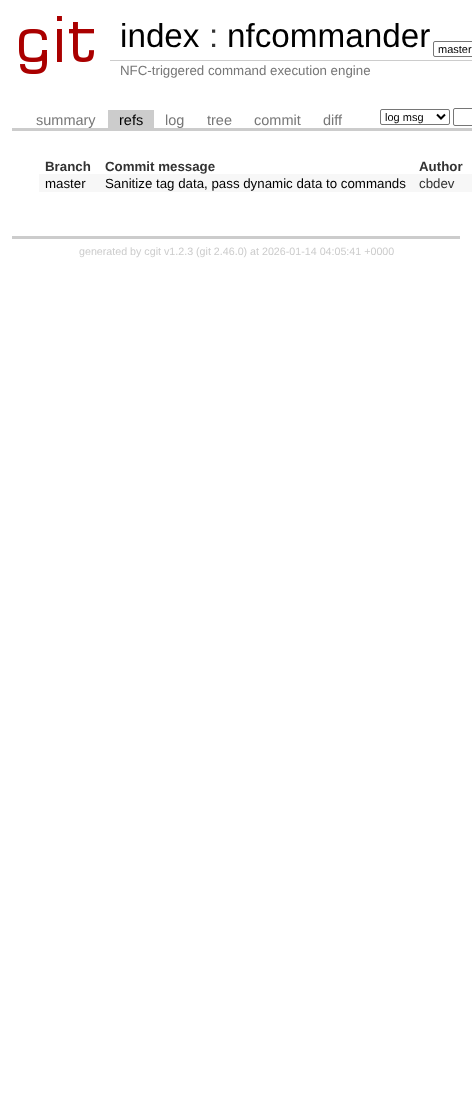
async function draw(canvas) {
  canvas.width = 472
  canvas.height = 1103
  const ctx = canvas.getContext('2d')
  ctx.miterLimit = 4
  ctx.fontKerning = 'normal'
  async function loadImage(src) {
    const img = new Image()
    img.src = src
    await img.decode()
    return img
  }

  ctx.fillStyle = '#fff'
  ctx.fillRect(0, 0, 472, 1103)
  ctx.drawImage(await loadImage('image0.png'), 19, 16, 75, 58)
  ctx.font = '33.25px Liberation Sans'
  ctx.fillStyle = '#000'
  ctx.fillText('index', 120, 47)
  ctx.fillStyle = '#333'
  ctx.fillText(':', 209, 47)
  ctx.fillStyle = '#000'
  ctx.fillText('nfcommander', 227, 47)
  ctx.beginPath()
  ctx.roundRect(433.5, 41.5, 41, 15, 1.5)
  ctx.strokeStyle = '#767676'
  ctx.stroke()
  ctx.font = '11px Liberation Sans'
  ctx.fillText('master', 438, 53)
  ctx.fillStyle = '#ccc'
  ctx.fillRect(110, 60, 362, 1)
  ctx.font = '13.3px Liberation Sans'
  ctx.fillStyle = '#777'
  ctx.fillText('NFC-triggered command execution engine', 120, 75)
  ctx.fillStyle = '#ccc'
  ctx.fillRect(12, 128, 460, 3)
  ctx.font = '14.5px Liberation Sans'
  ctx.fillStyle = '#777'
  ctx.fillText('summary', 36, 125)
  ctx.fillStyle = '#ccc'
  ctx.fillRect(108, 110, 46, 18)
  ctx.fillStyle = '#000'
  ctx.fillText('refs', 119, 125)
  ctx.fillStyle = '#777'
  ctx.fillText('log', 165, 125)
  ctx.fillText('tree', 207, 125)
  ctx.fillText('commit', 254, 125)
  ctx.fillText('diff', 323, 125)
  ctx.beginPath()
  ctx.roundRect(380.5, 109.5, 69, 15, 1.5)
  ctx.stroke()
  ctx.beginPath()
  ctx.moveTo(437, 114.5)
  ctx.lineTo(441, 118.5)
  ctx.lineTo(445, 114.5)
  ctx.strokeStyle = '#000'
  ctx.lineWidth = 2
  ctx.stroke()
  ctx.font = '11px Liberation Sans'
  ctx.fillStyle = '#000'
  ctx.fillText('log msg', 385, 121)
  ctx.beginPath()
  ctx.roundRect(453.5, 108.5, 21, 17, 1.5)
  ctx.strokeStyle = '#767676'
  ctx.lineWidth = 1
  ctx.stroke()
  ctx.fillStyle = '#ccc'
  ctx.fillRect(12, 236, 448, 3)
  ctx.font = 'bold 13.3px Liberation Sans'
  ctx.fillStyle = '#333'
  ctx.fillText('Branch', 45, 171)
  ctx.fillText('Commit message', 105, 171)
  ctx.fillText('Author', 419, 171)
  ctx.fillStyle = '#f7f7f7'
  ctx.fillRect(39, 174, 433, 18)
  ctx.font = '13.3px Liberation Sans'
  ctx.fillStyle = '#000'
  ctx.fillText('master', 45, 188)
  ctx.fillText('Sanitize tag data, pass dynamic data to commands', 105, 188)
  ctx.fillStyle = '#333'
  ctx.fillText('cbdev', 419, 188)
  ctx.font = '10.7px Liberation Sans'
  ctx.fillStyle = '#ccc'
  ctx.fillText('generated by cgit v1.2.3 (git 2.46.0) at 2026-01-14 04:05:41 +0000', 79, 255)
}

draw(document.querySelector('canvas'))
